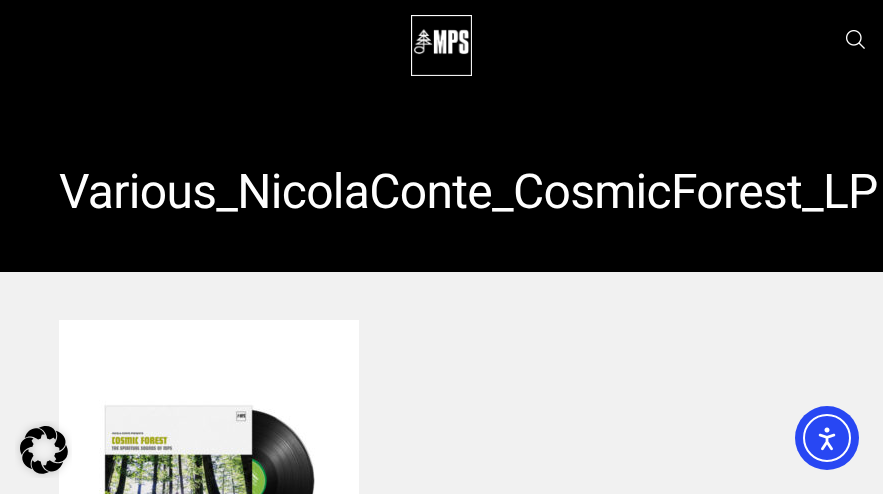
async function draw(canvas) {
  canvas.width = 883
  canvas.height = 494
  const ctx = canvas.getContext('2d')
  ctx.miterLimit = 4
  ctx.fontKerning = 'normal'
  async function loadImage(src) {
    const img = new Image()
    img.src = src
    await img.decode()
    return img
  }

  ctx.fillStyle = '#f1f1f1'
  ctx.fillRect(0, 0, 883, 494)
  ctx.fillStyle = '#000'
  ctx.fillRect(0, 0, 883, 272)
  ctx.drawImage(await loadImage('image0.png'), 411, 15, 61, 61)
  ctx.drawImage(await loadImage('image1.png'), 846, 30, 19, 19)
  ctx.letterSpacing = '-0.7px'
  ctx.font = '48px Roboto'
  ctx.fillStyle = '#fefefe'
  ctx.fillText('Various_NicolaConte_CosmicForest_LP', 59, 208)
  ctx.drawImage(await loadImage('image2.png'), 59, 320, 300, 174)
  ctx.drawImage(await loadImage('image3.png'), 15, 421, 57, 57)
  ctx.fillStyle = '#2847f3'
  ctx.beginPath()
  ctx.arc(827, 438, 32, 0, 2 * Math.PI)
  ctx.fill()
  ctx.beginPath()
  ctx.arc(827, 438, 23, 0, 2 * Math.PI)
  ctx.strokeStyle = '#fff'
  ctx.lineWidth = 2
  ctx.stroke()
  ctx.drawImage(await loadImage('image4.png'), 818, 427, 18, 24)
}

draw(document.querySelector('canvas'))
